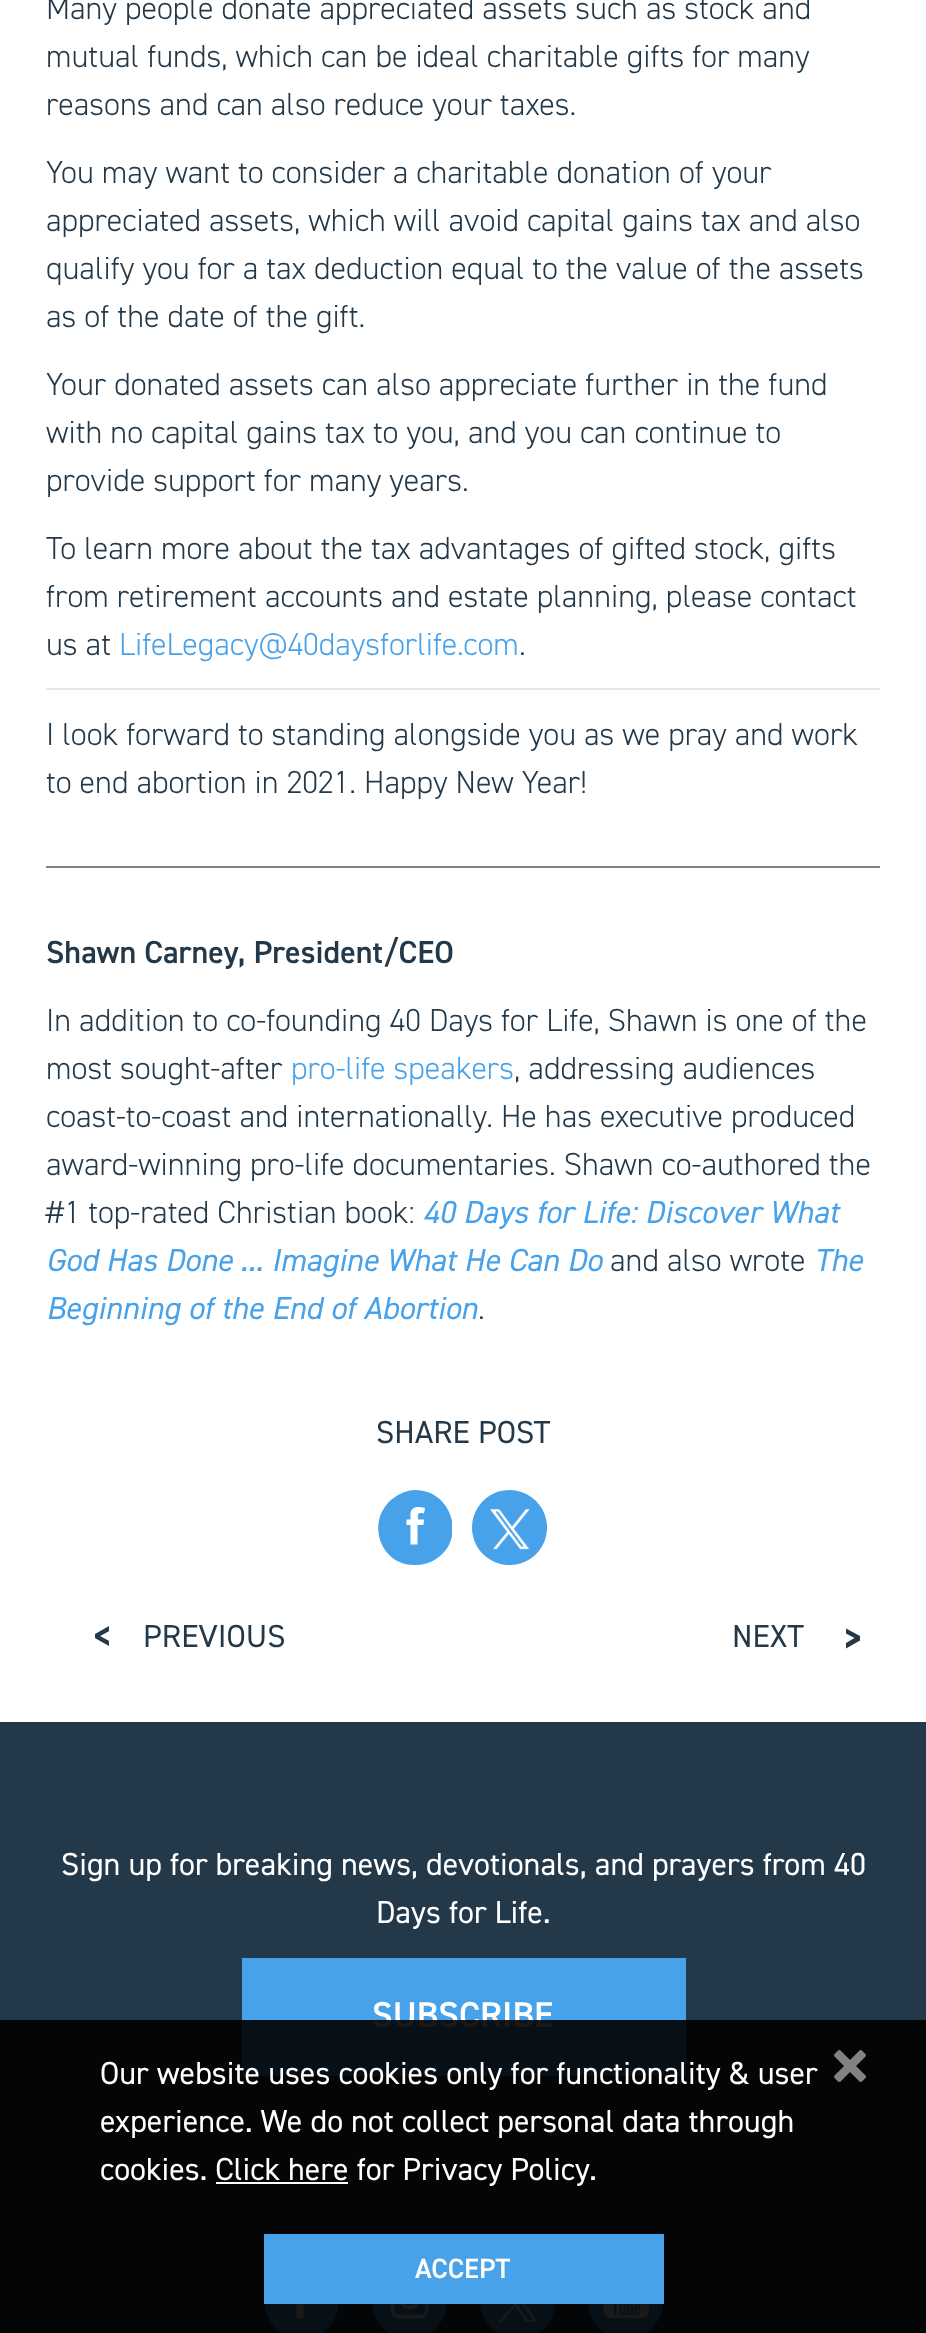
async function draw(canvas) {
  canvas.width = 926
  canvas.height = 2333
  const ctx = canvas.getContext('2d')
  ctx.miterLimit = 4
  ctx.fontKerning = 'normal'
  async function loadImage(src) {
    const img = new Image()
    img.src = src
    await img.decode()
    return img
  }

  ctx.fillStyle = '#fff'
  ctx.fillRect(0, 0, 926, 2333)
  ctx.font = '300 32px "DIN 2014"'
  ctx.fillStyle = '#233848'
  ctx.fillText('Many people donate appreciated assets such as stock and', 46, 19)
  ctx.fillText('mutual funds, which can be ideal charitable gifts for many', 46, 67)
  ctx.fillText('reasons and can also reduce your taxes.', 46, 115)
  ctx.fillText('You may want to consider a charitable donation of your', 46, 183)
  ctx.fillText('appreciated assets, which will avoid capital gains tax and also', 46, 231)
  ctx.fillText('qualify you for a tax deduction equal to the value of the assets', 46, 279)
  ctx.fillText('as of the date of the gift.', 46, 327)
  ctx.fillText('Your donated assets can also appreciate further in the fund', 46, 395)
  ctx.fillText('with no capital gains tax to you, and you can continue to', 46, 443)
  ctx.fillText('provide support for many years.', 46, 491)
  ctx.fillText('To learn more about the tax advantages of gifted stock, gifts', 46, 559)
  ctx.fillText('from retirement accounts and estate planning, please contact', 46, 607)
  ctx.fillText('us at', 46, 655)
  ctx.fillStyle = '#48a2ea'
  ctx.fillText('LifeLegacy@40daysforlife.com', 119, 655)
  ctx.fillStyle = '#233848'
  ctx.fillText('.', 519, 655)
  ctx.fillStyle = '#e6e6e6'
  ctx.fillRect(46, 688, 834, 2)
  ctx.fillStyle = '#233848'
  ctx.fillText('I look forward to standing alongside you as we pray and work', 46, 745)
  ctx.fillText('to end abortion in 2021. Happy New Year!', 46, 793)
  ctx.fillStyle = '#828282'
  ctx.fillRect(46, 866, 834, 2)
  ctx.font = '600 32px "DIN 2014"'
  ctx.fillStyle = '#233848'
  ctx.fillText('Shawn Carney, President/CEO', 46, 963)
  ctx.font = '300 32px "DIN 2014"'
  ctx.fillText('In addition to co-founding 40 Days for Life, Shawn is one of the', 46, 1031)
  ctx.fillText('most sought-after', 46, 1079)
  ctx.fillStyle = '#48a2ea'
  ctx.fillText('pro-life speakers', 291, 1079)
  ctx.fillStyle = '#233848'
  ctx.fillText(', addressing audiences', 514, 1079)
  ctx.fillText('coast-to-coast and internationally. He has executive produced', 46, 1127)
  ctx.fillText('award-winning pro-life documentaries. Shawn co-authored the', 46, 1175)
  ctx.fillText('#1 top-rated Christian book:', 46, 1223)
  ctx.font = 'italic 32px "DIN 2014"'
  ctx.fillStyle = '#48a2ea'
  ctx.fillText('40 Days for Life: Discover What', 423, 1223)
  ctx.fillText('God Has Done ... Imagine What He Can Do', 46, 1271)
  ctx.font = '300 32px "DIN 2014"'
  ctx.fillStyle = '#233848'
  ctx.fillText('and also wrote', 610, 1271)
  ctx.font = 'italic 32px "DIN 2014"'
  ctx.fillStyle = '#48a2ea'
  ctx.fillText('The', 814, 1271)
  ctx.fillText('Beginning of the End of Abortion', 46, 1319)
  ctx.font = '300 32px "DIN 2014"'
  ctx.fillStyle = '#233848'
  ctx.fillText('.', 478, 1319)
  ctx.font = '32px "DIN 2014"'
  ctx.fillText('SHARE POST', 376, 1443)
  ctx.save()
  ctx.beginPath()
  ctx.rect(378, 1490, 74, 76)
  ctx.clip()
  ctx.fillStyle = '#48a2ea'
  ctx.beginPath()
  ctx.moveTo(415, 1565)
  ctx.bezierCurveTo(423, 1565, 430, 1563, 436, 1559)
  ctx.bezierCurveTo(467, 1539, 452, 1490, 415, 1490)
  ctx.bezierCurveTo(408, 1490, 401, 1493, 395, 1497)
  ctx.bezierCurveTo(364, 1518, 379, 1566, 415, 1565)
  ctx.fill()
  ctx.restore()
  ctx.fillStyle = '#fff'
  ctx.beginPath()
  ctx.moveTo(406.5, 1519.5)
  ctx.lineTo(410.5, 1519.5)
  ctx.lineTo(410.5, 1513.5)
  ctx.bezierCurveTo(411.5, 1506, 419, 1506.5, 425, 1508)
  ctx.lineTo(424, 1513.5)
  ctx.bezierCurveTo(417.5, 1512, 418, 1514, 418, 1519.5)
  ctx.lineTo(424, 1519.5)
  ctx.lineTo(423.5, 1525)
  ctx.lineTo(417.5, 1525)
  ctx.lineTo(417.5, 1544.5)
  ctx.lineTo(410.5, 1544.5)
  ctx.lineTo(410.5, 1525)
  ctx.lineTo(406.5, 1525)
  ctx.closePath()
  ctx.fill()
  ctx.drawImage(await loadImage('image0.png'), 472, 1490, 75, 75)
  ctx.drawImage(await loadImage('image1.png'), 95, 1626, 14, 20)
  ctx.fillStyle = '#233848'
  ctx.fillText('PREVIOUS', 143, 1647)
  ctx.fillText('NEXT', 732, 1647)
  ctx.beginPath()
  ctx.moveTo(854.5, 1638)
  ctx.lineTo(846, 1633.5)
  ctx.lineTo(846, 1628.5)
  ctx.lineTo(860, 1636)
  ctx.lineTo(860, 1640.5)
  ctx.lineTo(846, 1648.5)
  ctx.lineTo(846, 1643)
  ctx.closePath()
  ctx.fill()
  ctx.fillRect(0, 1722, 926, 611)
  ctx.fillStyle = '#fff'
  ctx.fillText('Sign up for breaking news, devotionals, and prayers from 40', 61, 1875)
  ctx.fillText('Days for Life.', 376, 1923)
  ctx.fillStyle = '#48a2ea'
  ctx.fillRect(242, 1958, 444, 118)
  ctx.font = '600 36px "DIN 2014"'
  ctx.fillStyle = '#fff'
  ctx.fillText('SUBSCRIBE', 372, 2027)
  ctx.save()
  ctx.beginPath()
  ctx.rect(264, 2264, 74, 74)
  ctx.clip()
  ctx.fillStyle = '#48a2ea'
  ctx.beginPath()
  ctx.moveTo(302, 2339)
  ctx.bezierCurveTo(338, 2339, 353, 2291, 322, 2270)
  ctx.bezierCurveTo(316, 2266, 309, 2264, 302, 2264)
  ctx.bezierCurveTo(294, 2264, 287, 2266, 281, 2270)
  ctx.bezierCurveTo(250, 2291, 265, 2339, 302, 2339)
  ctx.fill()
  ctx.restore()
  ctx.beginPath()
  ctx.moveTo(292.5, 2293)
  ctx.lineTo(296.5, 2293)
  ctx.lineTo(296.5, 2287)
  ctx.bezierCurveTo(297.5, 2279.5, 305, 2280, 311, 2281.5)
  ctx.lineTo(310, 2287)
  ctx.bezierCurveTo(303.5, 2285.5, 304, 2287.5, 304, 2293)
  ctx.lineTo(310, 2293)
  ctx.lineTo(309.5, 2298.5)
  ctx.lineTo(303.5, 2298.5)
  ctx.lineTo(303.5, 2318)
  ctx.lineTo(296.5, 2318)
  ctx.lineTo(296.5, 2298.5)
  ctx.lineTo(292.5, 2298.5)
  ctx.closePath()
  ctx.fill()
  ctx.drawImage(await loadImage('image2.png'), 372, 2304, 74, 29)
  ctx.fillStyle = '#48a2ea'
  ctx.beginPath()
  ctx.moveTo(518, 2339)
  ctx.bezierCurveTo(526, 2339, 534, 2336, 541, 2331)
  ctx.bezierCurveTo(569, 2309, 552, 2263, 517, 2264)
  ctx.bezierCurveTo(508, 2264, 500, 2267, 494, 2273)
  ctx.bezierCurveTo(466, 2295, 483, 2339, 518, 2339)
  ctx.closePath()
  ctx.fill()
  ctx.fillStyle = '#fff'
  ctx.beginPath()
  ctx.moveTo(522, 2299)
  ctx.lineTo(537, 2282)
  ctx.lineTo(533, 2282)
  ctx.lineTo(520, 2297)
  ctx.lineTo(510, 2282)
  ctx.lineTo(498, 2282)
  ctx.lineTo(514, 2304)
  ctx.lineTo(498, 2322)
  ctx.lineTo(502, 2322)
  ctx.lineTo(515, 2306)
  ctx.lineTo(526, 2322)
  ctx.lineTo(538, 2322)
  ctx.closePath()
  ctx.moveTo(517, 2304)
  ctx.lineTo(503, 2285)
  ctx.lineTo(508, 2285)
  ctx.lineTo(533, 2320)
  ctx.lineTo(528, 2320)
  ctx.closePath()
  ctx.fill()
  ctx.drawImage(await loadImage('image3.png'), 588, 2304, 75, 29)
  ctx.fillStyle = '#000000e6'
  ctx.fillRect(0, 2020, 926, 313)
  ctx.font = '32px "DIN 2014"'
  ctx.fillStyle = '#fff'
  ctx.fillText('Our website uses cookies only for functionality & user', 100, 2084)
  ctx.fillText('experience. We do not collect personal data through', 100, 2132)
  ctx.fillText('cookies. Click here for Privacy Policy.', 100, 2180)
  ctx.fillRect(216, 2182, 132, 2)
  ctx.drawImage(await loadImage('image4.png'), 834, 2050, 32, 32)
  ctx.fillStyle = '#48a2ea'
  ctx.fillRect(264, 2234, 400, 70)
  ctx.font = '600 28px "DIN 2014"'
  ctx.fillStyle = '#fff'
  ctx.fillText('ACCEPT', 415, 2278)
}

draw(document.querySelector('canvas'))
